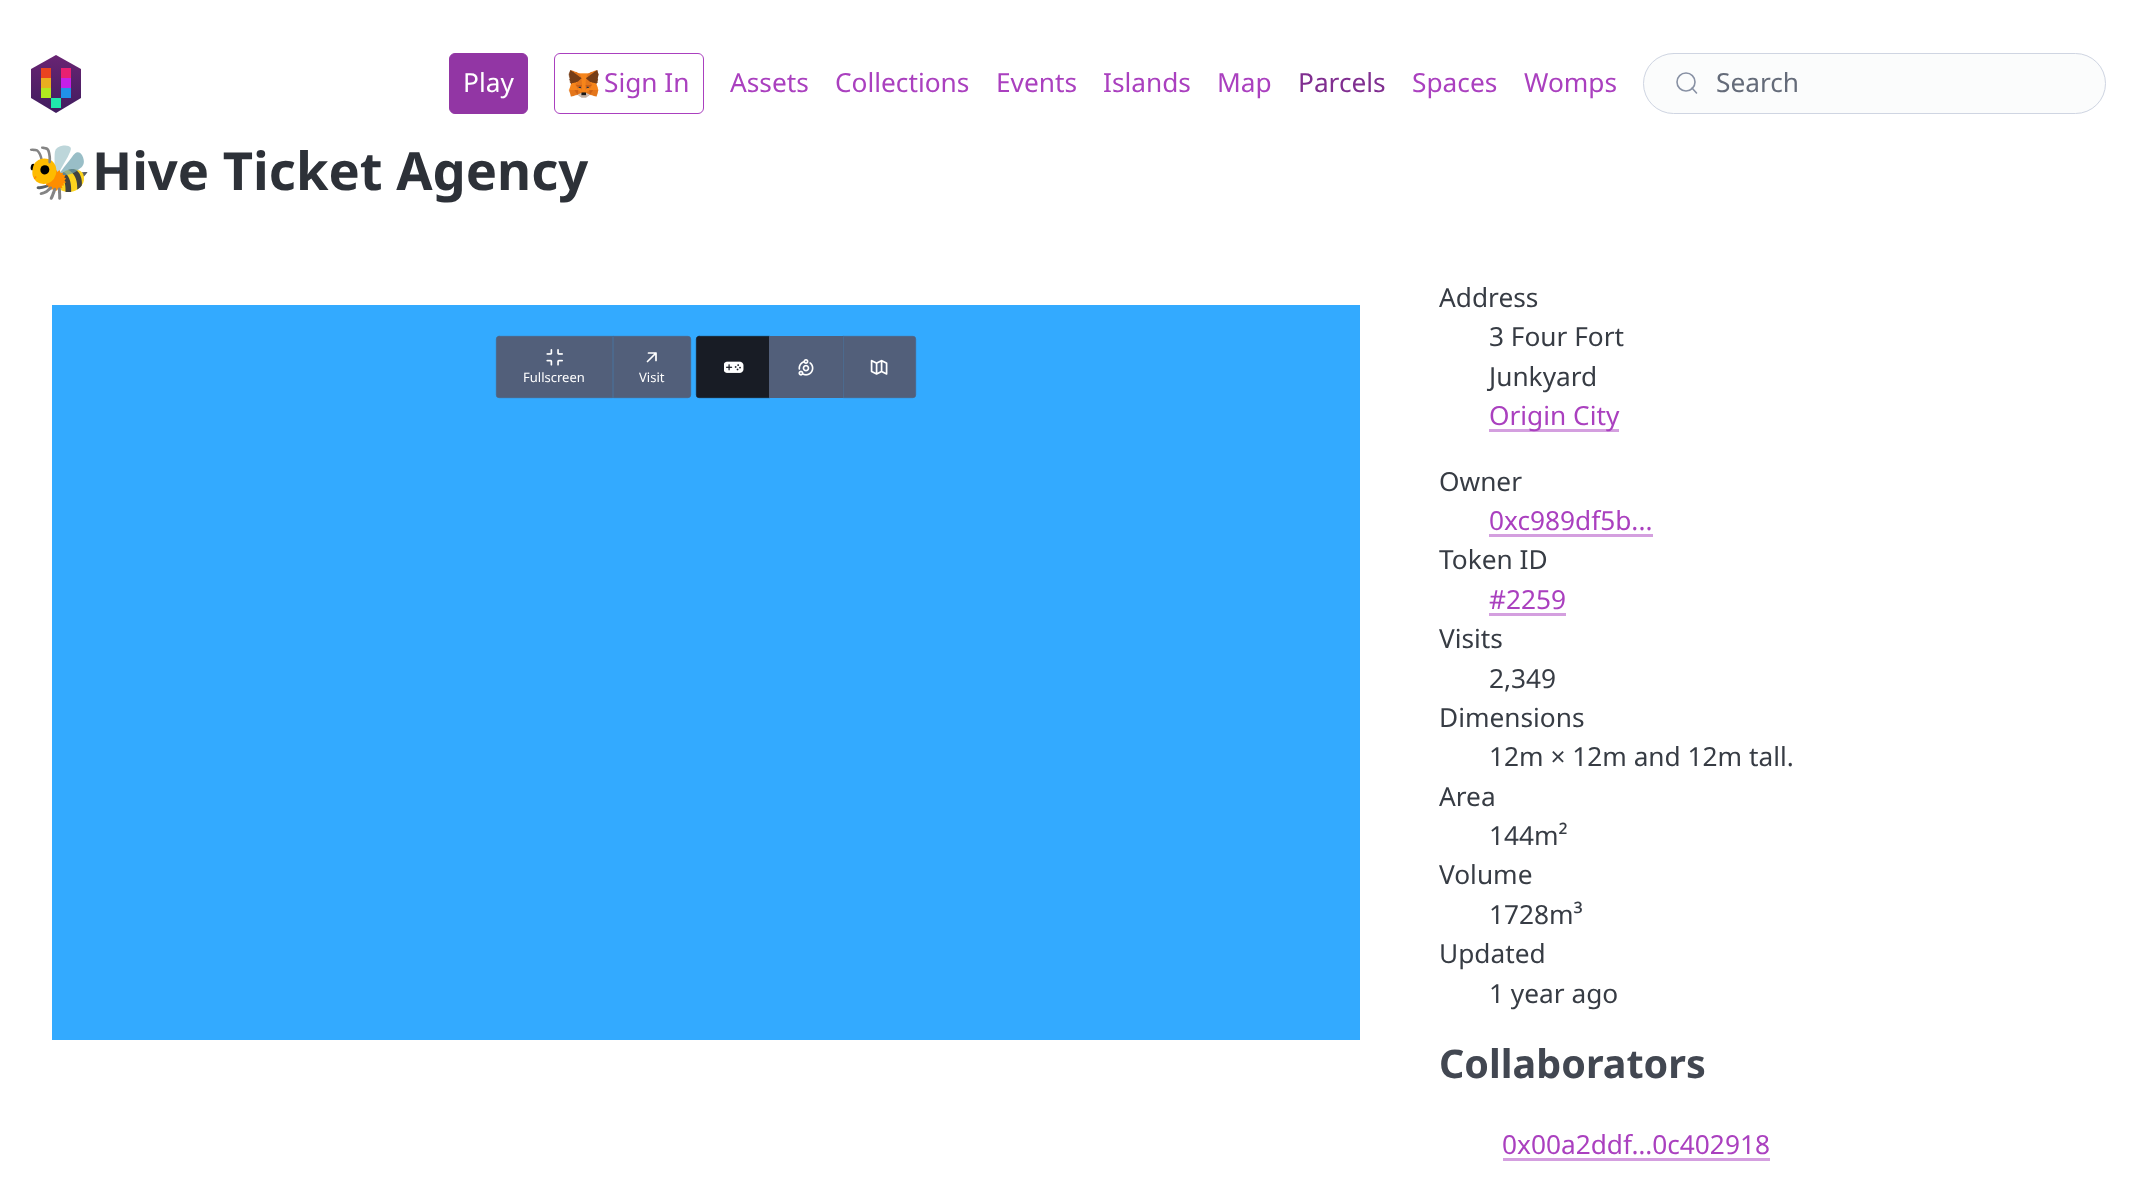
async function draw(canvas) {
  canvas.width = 2145
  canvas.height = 1181
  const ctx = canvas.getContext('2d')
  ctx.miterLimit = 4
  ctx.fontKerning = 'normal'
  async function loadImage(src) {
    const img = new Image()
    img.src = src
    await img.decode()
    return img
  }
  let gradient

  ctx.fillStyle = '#fff'
  ctx.fillRect(0, 0, 2145, 1181)
  gradient = ctx.createLinearGradient(56, 55, 56, 113)
  gradient.addColorStop(0, '#692473')
  gradient.addColorStop(1, '#401d5f')
  ctx.fillStyle = gradient
  ctx.beginPath()
  ctx.moveTo(56, 113)
  ctx.lineTo(31, 98)
  ctx.lineTo(31, 69)
  ctx.lineTo(56, 55)
  ctx.lineTo(81, 69)
  ctx.lineTo(81, 98)
  ctx.closePath()
  ctx.fill()
  ctx.fillStyle = '#e94420'
  ctx.fillRect(41, 68, 10, 10)
  ctx.fillStyle = '#e92071'
  ctx.fillRect(61, 68, 10, 10)
  ctx.fillStyle = '#e9ae20'
  ctx.fillRect(41, 78, 10, 10)
  ctx.fillStyle = '#c420e9'
  ctx.fillRect(61, 78, 10, 10)
  ctx.fillStyle = '#b1e920'
  ctx.fillRect(41, 88, 10, 10)
  ctx.fillStyle = '#2091e9'
  ctx.fillRect(61, 88, 10, 10)
  ctx.fillStyle = '#20e9ac'
  ctx.fillRect(51, 98, 10, 10)
  ctx.fillStyle = '#9236a4'
  ctx.beginPath()
  ctx.roundRect(449.5, 53.5, 78, 60, 5.5)
  ctx.fill()
  ctx.strokeStyle = '#9236a4'
  ctx.stroke()
  ctx.font = '26.25px Noto Sans'
  ctx.fillStyle = '#fff'
  ctx.fillText('Play', 463, 92)
  ctx.beginPath()
  ctx.roundRect(554.5, 53.5, 149, 60, 5.5)
  ctx.strokeStyle = '#aa40bf'
  ctx.stroke()
  ctx.drawImage(await loadImage('image0.png'), 568, 70, 31, 28)
  ctx.fillStyle = '#aa40bf'
  ctx.fillText('Sign In', 604, 92)
  ctx.fillText('Assets', 730, 92)
  ctx.fillText('Collections', 835, 92)
  ctx.fillText('Events', 996, 92)
  ctx.fillText('Islands', 1103, 92)
  ctx.fillText('Map', 1217, 92)
  ctx.fillStyle = '#802e90'
  ctx.fillText('Parcels', 1298, 92)
  ctx.fillStyle = '#aa40bf'
  ctx.fillText('Spaces', 1412, 92)
  ctx.fillText('Womps', 1524, 92)
  ctx.fillStyle = '#fbfcfc'
  ctx.beginPath()
  ctx.roundRect(1643, 53, 463, 61, 30.5)
  ctx.fill()
  ctx.beginPath()
  ctx.arc(1686, 82, 9, 0, 2 * Math.PI)
  ctx.strokeStyle = '#8891a4'
  ctx.lineWidth = 1.6
  ctx.stroke()
  ctx.beginPath()
  ctx.moveTo(1696.5, 93)
  ctx.lineTo(1692, 88)
  ctx.lineCap = 'round'
  ctx.lineJoin = 'round'
  ctx.stroke()
  ctx.beginPath()
  ctx.roundRect(1643.5, 53.5, 462, 60, 30)
  ctx.strokeStyle = '#cfd5e2'
  ctx.lineWidth = 1
  ctx.lineJoin = 'miter'
  ctx.stroke()
  ctx.fillStyle = '#646b79'
  ctx.fillText('Search', 1716, 92)
  ctx.font = 'bold 52.5px Noto Color Emoji'
  ctx.fillStyle = '#2d3138'
  ctx.fillText('🐝', 26, 190)
  ctx.font = 'bold 52.5px Noto Sans'
  ctx.fillText('Hive Ticket Agency', 92, 190)
  ctx.fillStyle = '#3af'
  ctx.fillRect(52, 305, 1308, 735)
  ctx.fillStyle = '#525f7a'
  ctx.beginPath()
  ctx.roundRect(496.3, 336.3, 116.4, 61.4, [2.7, 0, 0, 2.7])
  ctx.fill()
  ctx.strokeStyle = '#525f7a'
  ctx.lineWidth = 0.6
  ctx.stroke()
  ctx.drawImage(await loadImage('image1.png'), 546, 349, 17, 17)
  ctx.font = '13px Noto Sans'
  ctx.fillStyle = '#fff'
  ctx.fillText('Fullscreen', 523, 382)
  ctx.fillStyle = '#525f7a'
  ctx.beginPath()
  ctx.roundRect(613.3, 336.3, 77.4, 61.4, [0, 2.7, 2.7, 0])
  ctx.fill()
  ctx.stroke()
  ctx.beginPath()
  ctx.moveTo(647.5, 361.5)
  ctx.lineTo(656, 353)
  ctx.moveTo(656, 353)
  ctx.lineTo(648.5, 353)
  ctx.moveTo(656, 353)
  ctx.lineTo(656, 360.5)
  ctx.strokeStyle = '#fff'
  ctx.lineWidth = 1.7
  ctx.lineJoin = 'round'
  ctx.stroke()
  ctx.fillStyle = '#fff'
  ctx.fillText('Visit', 639, 382)
  ctx.fillStyle = '#181c25'
  ctx.beginPath()
  ctx.roundRect(696.3, 336.3, 73.4, 61.4, [2.7, 0, 0, 2.7])
  ctx.fill()
  ctx.strokeStyle = '#181c25'
  ctx.lineWidth = 0.6
  ctx.lineJoin = 'miter'
  ctx.stroke()
  ctx.drawImage(await loadImage('image2.png'), 724, 361, 20, 12)
  ctx.fillStyle = '#525f7a'
  ctx.fillRect(769, 336, 74, 62)
  ctx.drawImage(await loadImage('image3.png'), 798, 359, 16, 17)
  ctx.beginPath()
  ctx.roundRect(843.3, 336.3, 72.4, 61.4, [0, 2.7, 2.7, 0])
  ctx.fill()
  ctx.strokeStyle = '#525f7a'
  ctx.stroke()
  ctx.drawImage(await loadImage('image4.png'), 870, 359, 18, 16)
  ctx.font = '26.25px Noto Sans'
  ctx.fillStyle = '#373c44'
  ctx.fillText('Address', 1439, 307)
  ctx.fillText('3 Four Fort', 1489, 346)
  ctx.fillText('Junkyard', 1489, 386)
  ctx.fillStyle = '#d49fdf'
  ctx.fillRect(1489, 429, 130, 3)
  ctx.fillStyle = '#aa40bf'
  ctx.fillText('Origin City', 1489, 425)
  ctx.fillStyle = '#373c44'
  ctx.fillText('Owner', 1439, 491)
  ctx.fillStyle = '#aa40bf'
  ctx.fillText('0xc989df5b...', 1489, 530)
  ctx.fillStyle = '#d49fdf'
  ctx.fillRect(1489, 534, 164, 3)
  ctx.fillStyle = '#373c44'
  ctx.fillText('Token ID', 1439, 569)
  ctx.fillStyle = '#aa40bf'
  ctx.fillText('#2259', 1489, 609)
  ctx.fillStyle = '#d49fdf'
  ctx.fillRect(1489, 613, 77, 3)
  ctx.fillStyle = '#373c44'
  ctx.fillText('Visits', 1439, 648)
  ctx.fillText('2,349', 1489, 688)
  ctx.fillText('Dimensions', 1439, 727)
  ctx.fillText('12m × 12m and 12m tall.', 1489, 766)
  ctx.fillText('Area', 1439, 806)
  ctx.fillText('144m²', 1489, 845)
  ctx.fillText('Volume', 1439, 884)
  ctx.fillText('1728m³', 1489, 924)
  ctx.fillText('Updated', 1439, 963)
  ctx.fillText('1 year ago', 1489, 1003)
  ctx.font = 'bold 39.5px Noto Sans'
  ctx.fillStyle = '#424751'
  ctx.fillText('Collaborators', 1439, 1078)
  ctx.font = '26.25px Noto Sans'
  ctx.fillStyle = '#aa40bf'
  ctx.fillText('0x00a2ddf…0c402918', 1502, 1154)
  ctx.fillStyle = '#d49fdf'
  ctx.fillRect(1503, 1158, 267, 3)
}

draw(document.querySelector('canvas'))
